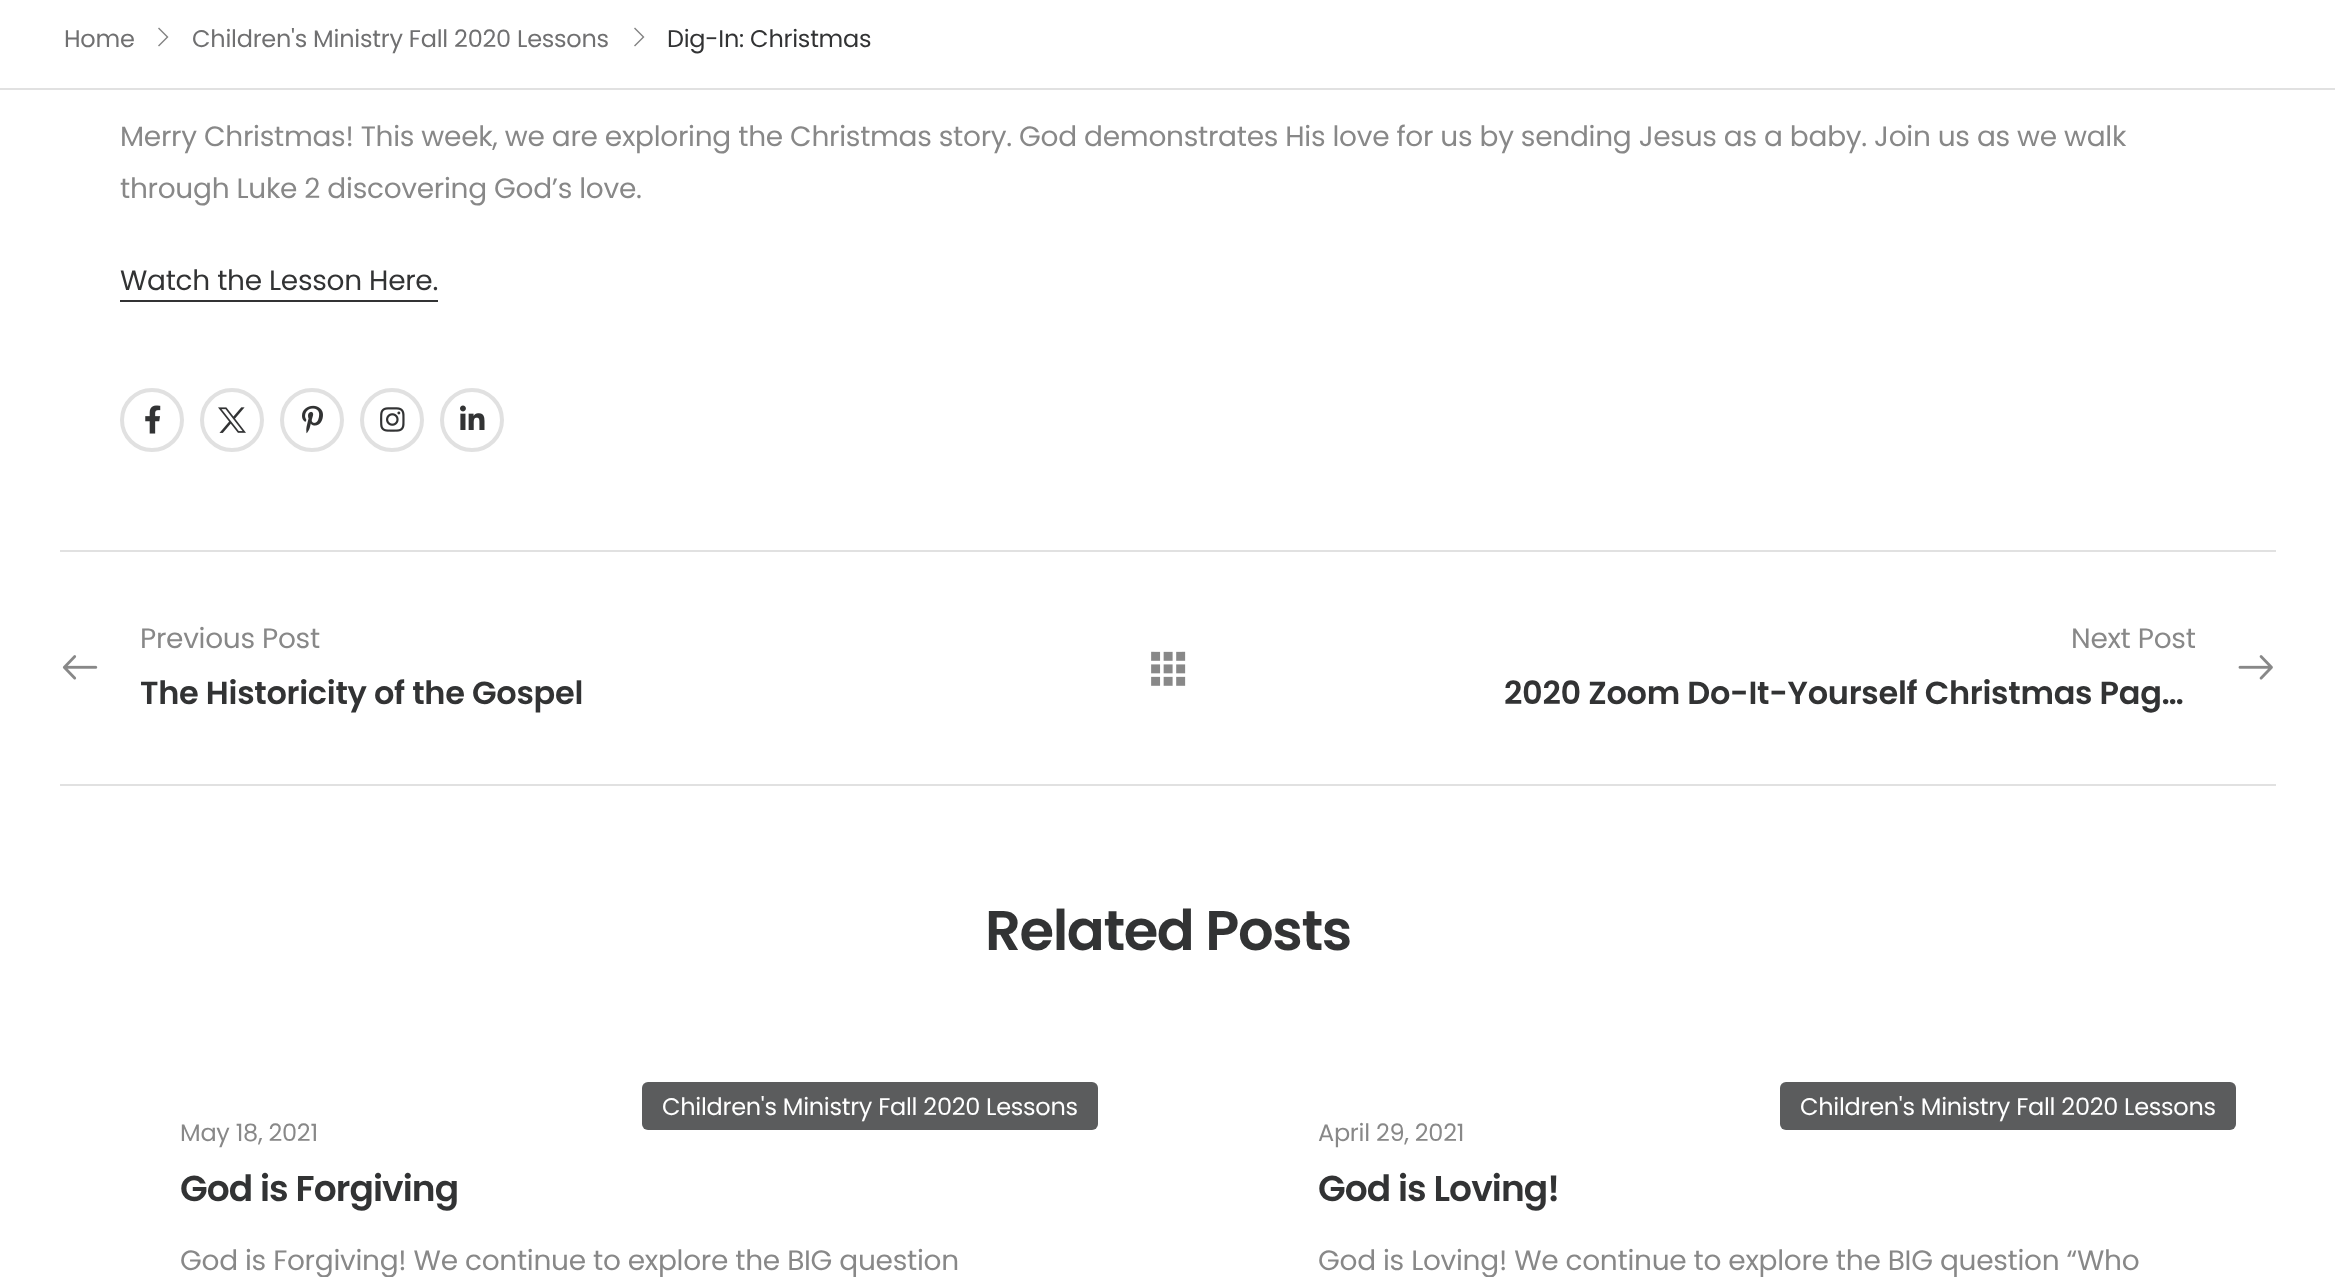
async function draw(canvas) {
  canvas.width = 2335
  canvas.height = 1277
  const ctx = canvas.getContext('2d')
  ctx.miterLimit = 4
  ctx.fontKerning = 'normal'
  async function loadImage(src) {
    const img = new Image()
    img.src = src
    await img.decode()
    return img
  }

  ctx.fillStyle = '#fff'
  ctx.fillRect(0, 0, 2335, 1277)
  ctx.fillStyle = '#e1e1e1'
  ctx.fillRect(0, 88, 2335, 2)
  ctx.letterSpacing = '-0.25px'
  ctx.font = '24px Poppins'
  ctx.fillStyle = '#707071'
  ctx.fillText('Home', 64, 47)
  ctx.fillStyle = '#848585'
  ctx.beginPath()
  ctx.moveTo(159, 27.5)
  ctx.lineTo(158, 28.5)
  ctx.lineTo(166.5, 37)
  ctx.lineTo(158, 45.5)
  ctx.lineTo(159, 46.5)
  ctx.lineTo(168.5, 37)
  ctx.closePath()
  ctx.fill()
  ctx.fillStyle = '#707071'
  ctx.fillText('Children\'s Ministry Fall 2020 Lessons', 192, 47)
  ctx.fillStyle = '#848585'
  ctx.beginPath()
  ctx.moveTo(635, 27.5)
  ctx.lineTo(634, 28.5)
  ctx.lineTo(642.5, 37)
  ctx.lineTo(634, 45.5)
  ctx.lineTo(635, 46.5)
  ctx.lineTo(644.5, 37)
  ctx.closePath()
  ctx.fill()
  ctx.fillStyle = '#323334'
  ctx.fillText('Dig-In: Christmas', 667, 47)
  ctx.letterSpacing = '-0.28px'
  ctx.font = '28px Poppins'
  ctx.fillStyle = '#888'
  ctx.fillText('Merry Christmas! This week, we are exploring the Christmas story. God demonstrates His love for us by sending Jesus as a baby. Join us as we walk', 120, 146)
  ctx.fillText('through Luke 2 discovering God’s love.', 120, 198)
  ctx.fillStyle = '#323334'
  ctx.fillText('Watch the Lesson Here.', 120, 290)
  ctx.fillRect(120, 300, 318, 2)
  ctx.beginPath()
  ctx.arc(152, 420, 30, 0, 2 * Math.PI)
  ctx.strokeStyle = '#e1e1e1'
  ctx.lineWidth = 4
  ctx.stroke()
  ctx.drawImage(await loadImage('image0.png'), 145, 405, 16, 29)
  ctx.beginPath()
  ctx.arc(232, 420, 30, 0, 2 * Math.PI)
  ctx.stroke()
  ctx.drawImage(await loadImage('image1.png'), 218, 407, 28, 26)
  ctx.beginPath()
  ctx.arc(312, 420, 30, 0, 2 * Math.PI)
  ctx.stroke()
  ctx.drawImage(await loadImage('image2.png'), 302, 405, 21, 29)
  ctx.beginPath()
  ctx.arc(392, 420, 30, 0, 2 * Math.PI)
  ctx.stroke()
  ctx.drawImage(await loadImage('image3.png'), 380, 407, 25, 25)
  ctx.beginPath()
  ctx.arc(472, 420, 30, 0, 2 * Math.PI)
  ctx.stroke()
  ctx.drawImage(await loadImage('image4.png'), 460, 405, 25, 25)
  ctx.fillStyle = '#e1e1e1'
  ctx.fillRect(60, 550, 2216, 2)
  ctx.fillStyle = '#888'
  ctx.fillText('Previous Post', 140, 648)
  ctx.drawImage(await loadImage('image5.png'), 62, 655, 36, 25)
  ctx.font = '600 32px Poppins'
  ctx.fillStyle = '#323334'
  ctx.fillText('The Historicity of the Gospel', 140, 704)
  ctx.font = '28px Poppins'
  ctx.fillStyle = '#888'
  ctx.fillText('Next Post', 2071, 648)
  ctx.drawImage(await loadImage('image6.png'), 2238, 655, 35, 25)
  ctx.font = '600 32px Poppins'
  ctx.fillStyle = '#323334'
  ctx.fillText('2020 Zoom Do-It-Yourself Christmas Pag…', 1504, 704)
  ctx.drawImage(await loadImage('image7.png'), 1151, 651, 35, 35)
  ctx.fillStyle = '#e1e1e1'
  ctx.fillRect(60, 784, 2216, 2)
  ctx.letterSpacing = '-1.4px'
  ctx.font = '600 56px Poppins'
  ctx.fillStyle = '#323334'
  ctx.fillText('Related Posts', 985, 950)
  ctx.fillStyle = '#5b5c5d'
  ctx.beginPath()
  ctx.roundRect(642, 1082, 456, 48, 6)
  ctx.fill()
  ctx.letterSpacing = '-0.28px'
  ctx.font = '24px Poppins'
  ctx.fillStyle = '#fff'
  ctx.fillText('Children\'s Ministry Fall 2020 Lessons', 662, 1115)
  ctx.fillStyle = '#888'
  ctx.fillText('May 18, 2021', 180, 1141)
  ctx.letterSpacing = '-0.9px'
  ctx.font = '600 36px Poppins'
  ctx.fillStyle = '#323334'
  ctx.fillText('God is Forgiving', 180, 1201)
  ctx.letterSpacing = '-0.28px'
  ctx.font = '28px Poppins'
  ctx.fillStyle = '#888'
  ctx.fillText('God is Forgiving! We continue to explore the BIG question', 180, 1270)
  ctx.fillStyle = '#5b5c5d'
  ctx.beginPath()
  ctx.roundRect(1780, 1082, 456, 48, 6)
  ctx.fill()
  ctx.font = '24px Poppins'
  ctx.fillStyle = '#fff'
  ctx.fillText('Children\'s Ministry Fall 2020 Lessons', 1800, 1115)
  ctx.fillStyle = '#888'
  ctx.fillText('April 29, 2021', 1318, 1141)
  ctx.letterSpacing = '-0.9px'
  ctx.font = '600 36px Poppins'
  ctx.fillStyle = '#323334'
  ctx.fillText('God is Loving!', 1318, 1201)
  ctx.letterSpacing = '-0.28px'
  ctx.font = '28px Poppins'
  ctx.fillStyle = '#888'
  ctx.fillText('God is Loving! We continue to explore the BIG question “Who', 1318, 1270)
}

draw(document.querySelector('canvas'))
